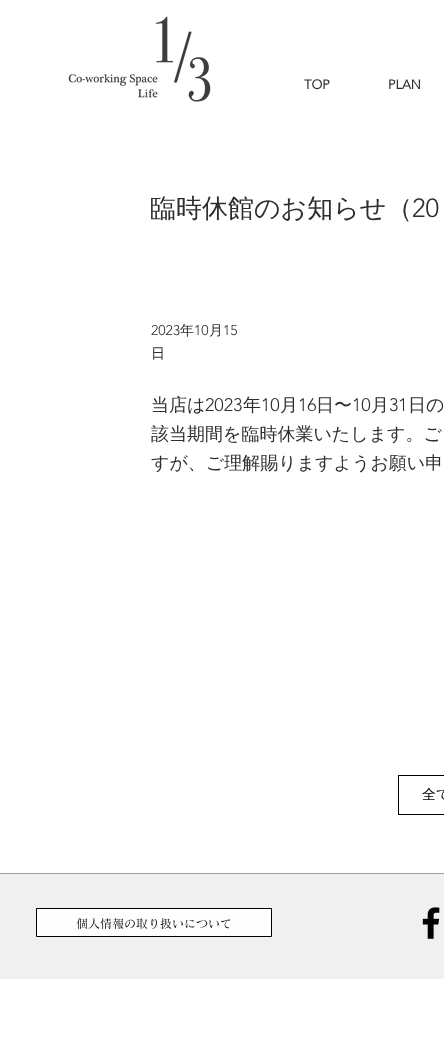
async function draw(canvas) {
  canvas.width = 444
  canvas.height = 1049
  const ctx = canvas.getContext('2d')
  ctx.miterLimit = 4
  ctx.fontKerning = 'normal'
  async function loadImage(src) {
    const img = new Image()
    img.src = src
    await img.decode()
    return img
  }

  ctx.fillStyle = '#fff'
  ctx.fillRect(0, 0, 444, 1049)
  ctx.drawImage(await loadImage('image0.png'), 68, 16, 143, 86)
  ctx.font = 'bold 13px "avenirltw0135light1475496"'
  ctx.fillStyle = '#2f2e2e'
  ctx.fillText('TOP', 304, 89)
  ctx.fillText('PLAN', 388, 89)
  ctx.font = '500 26px WenQuanYi Zen Hei'
  ctx.fillText('臨時休館のお知らせ（', 150, 217)
  ctx.font = '300 26px "avenirltw0135light1475496"'
  ctx.fillText('20', 412, 217)
  ctx.font = '300 14px "avenirltw0135light1475496"'
  ctx.fillText('2023', 151, 335)
  ctx.font = '500 14px WenQuanYi Zen Hei'
  ctx.fillText('年', 180, 335)
  ctx.font = '300 14px "avenirltw0135light1475496"'
  ctx.fillText('10', 194, 335)
  ctx.font = '500 14px WenQuanYi Zen Hei'
  ctx.fillText('月', 209, 335)
  ctx.font = '300 14px "avenirltw0135light1475496"'
  ctx.fillText('15', 223, 335)
  ctx.font = '500 14px WenQuanYi Zen Hei'
  ctx.fillText('日', 151, 358)
  ctx.font = '500 18px WenQuanYi Zen Hei'
  ctx.fillText('当店は', 151, 411)
  ctx.font = '300 18px "avenirltw0135light1475496"'
  ctx.fillText('2023', 205, 411)
  ctx.font = '500 18px WenQuanYi Zen Hei'
  ctx.fillText('年', 243, 411)
  ctx.font = '300 18px "avenirltw0135light1475496"'
  ctx.fillText('10', 261, 411)
  ctx.font = '500 18px WenQuanYi Zen Hei'
  ctx.fillText('月', 280, 411)
  ctx.font = '300 18px "avenirltw0135light1475496"'
  ctx.fillText('16', 298, 411)
  ctx.font = '500 18px WenQuanYi Zen Hei'
  ctx.fillText('日〜', 316, 411)
  ctx.font = '300 18px "avenirltw0135light1475496"'
  ctx.fillText('10', 352, 411)
  ctx.font = '500 18px WenQuanYi Zen Hei'
  ctx.fillText('月', 371, 411)
  ctx.font = '300 18px "avenirltw0135light1475496"'
  ctx.fillText('31', 389, 411)
  ctx.font = '500 18px WenQuanYi Zen Hei'
  ctx.fillText('日の', 408, 411)
  ctx.fillText('該当期間を臨時休業いたします。ご', 151, 440)
  ctx.fillText('すが、ご理解賜りますようお願い申', 151, 469)
  ctx.strokeStyle = '#000'
  ctx.strokeRect(398.5, 775.5, 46, 39)
  ctx.font = '500 14px WenQuanYi Zen Hei'
  ctx.fillStyle = '#000'
  ctx.fillText('全て', 422, 799)
  ctx.fillStyle = '#f0f0f0'
  ctx.fillRect(0, 874, 444, 105)
  ctx.fillStyle = '#a0a09f'
  ctx.fillRect(0, 873, 444, 1)
  ctx.fillStyle = '#fefefe'
  ctx.beginPath()
  ctx.rect(36.5, 908.5, 235, 28)
  ctx.fill()
  ctx.stroke()
  ctx.font = '500 12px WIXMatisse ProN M'
  ctx.fillStyle = '#000'
  ctx.fillText('個人情報の取り扱いについて', 76, 928)
  ctx.drawImage(await loadImage('image1.png'), 422, 907, 18, 32)
}

draw(document.querySelector('canvas'))
